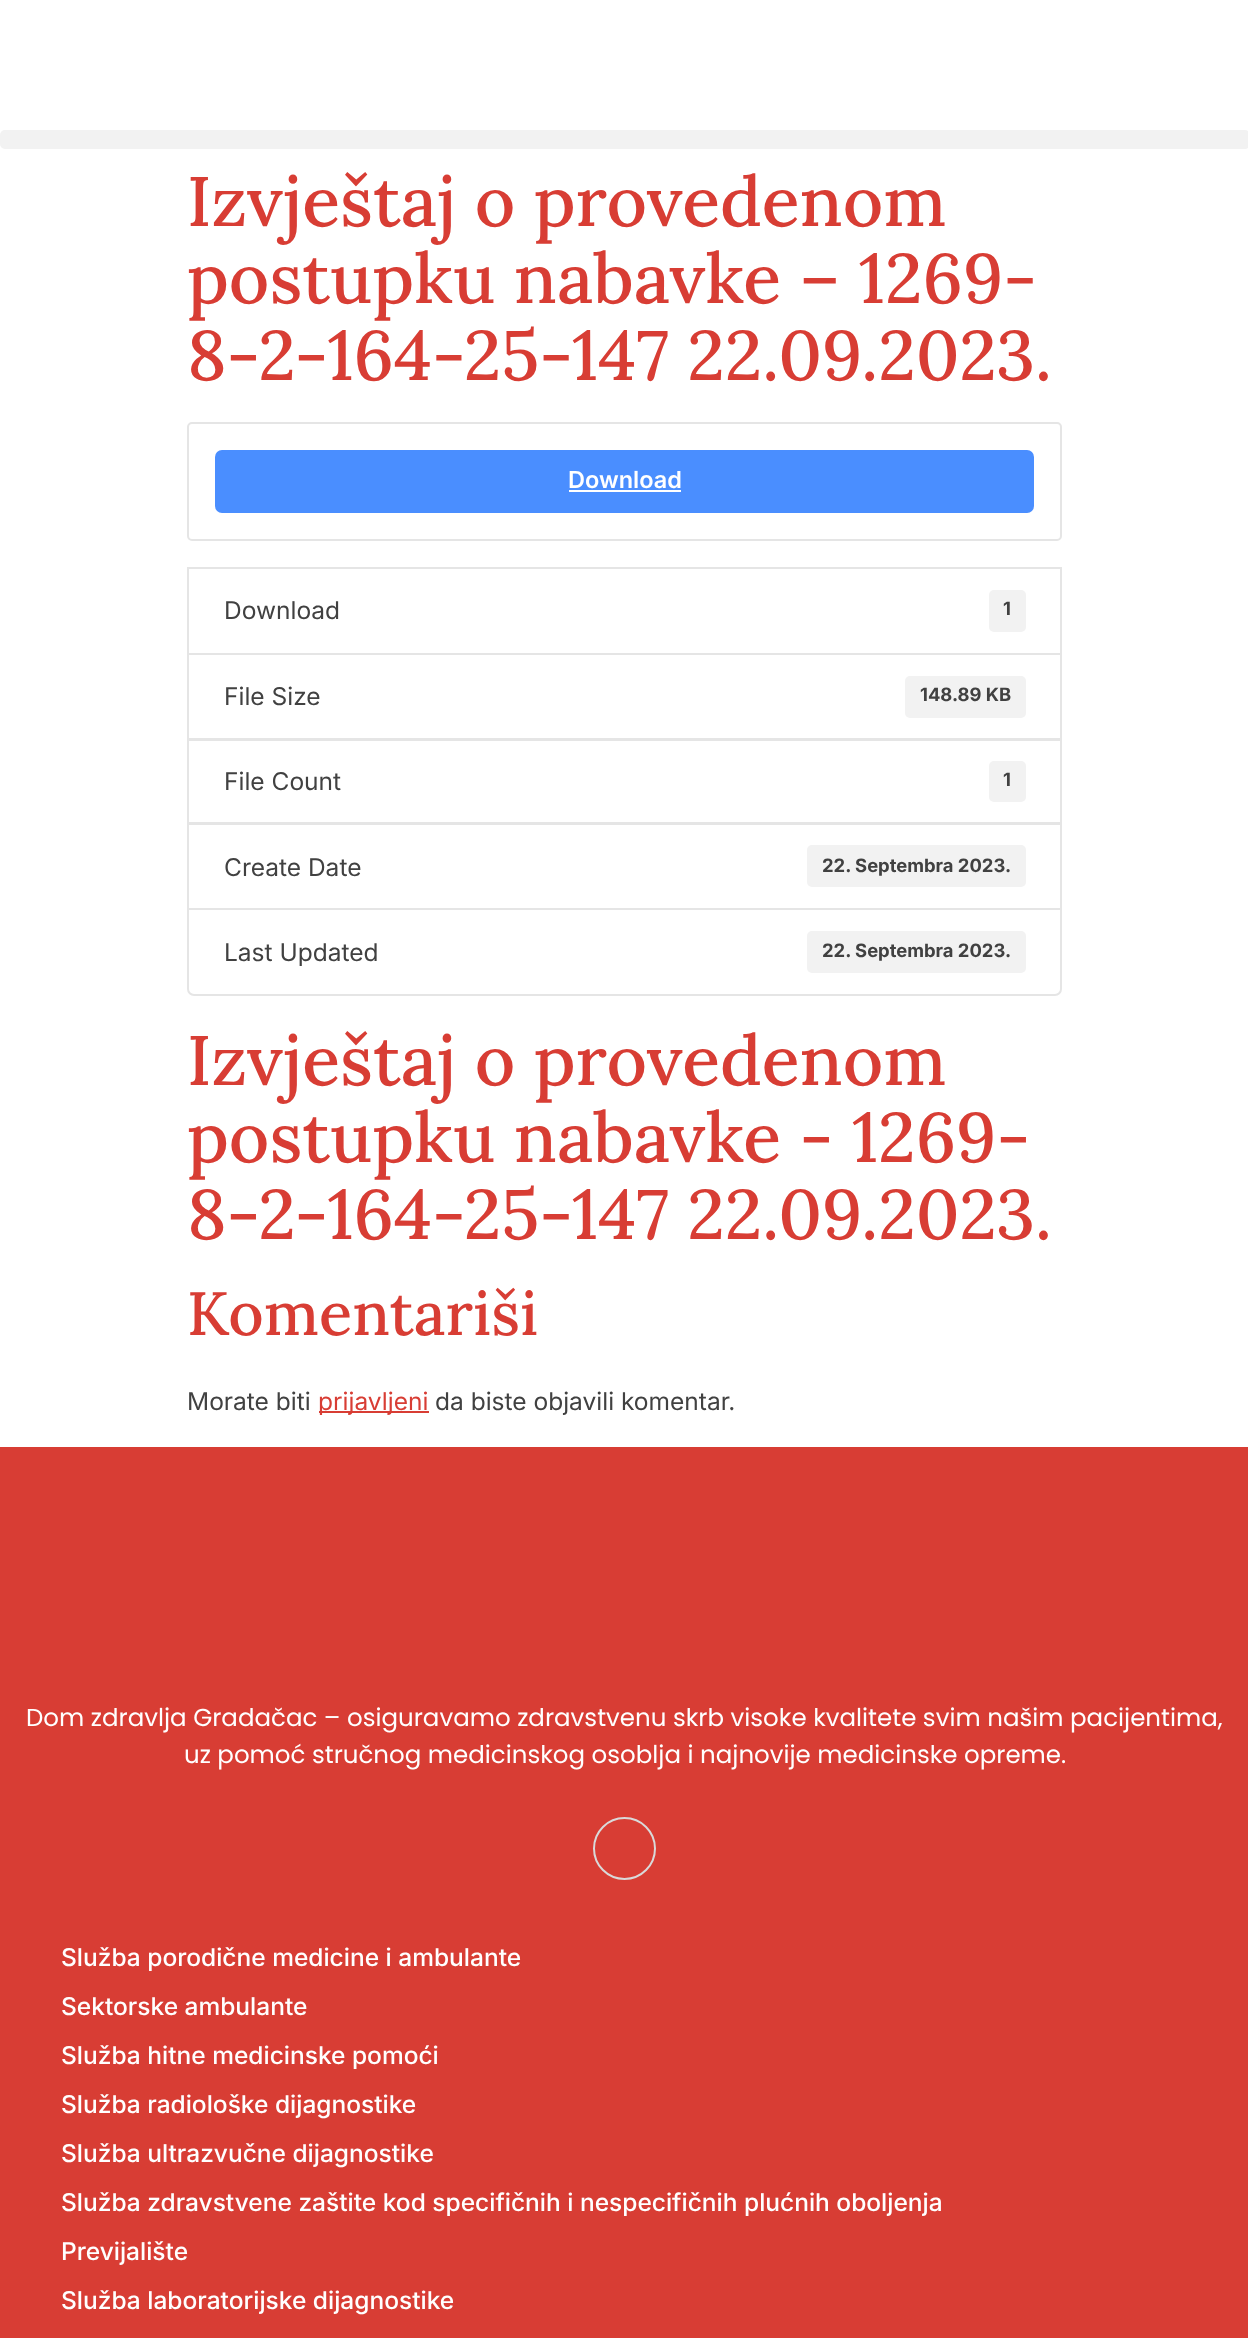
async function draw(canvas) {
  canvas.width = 1248
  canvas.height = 2338
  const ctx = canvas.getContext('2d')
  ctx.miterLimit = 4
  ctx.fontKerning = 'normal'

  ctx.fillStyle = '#fff'
  ctx.fillRect(0, 0, 1248, 2338)
  ctx.fillStyle = '#f2f2f2'
  ctx.beginPath()
  ctx.roundRect(0, 130, 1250, 19, 5)
  ctx.fill()
  ctx.font = '500 70px Lora'
  ctx.fillStyle = '#d83d34'
  ctx.fillText('Izvještaj o provedenom', 187, 226)
  ctx.fillText('postupku nabavke – 1269-', 187, 303)
  ctx.fillText('8-2-164-25-147 22.09.2023.', 187, 380)
  ctx.beginPath()
  ctx.roundRect(188, 423, 873, 117, 4)
  ctx.strokeStyle = '#e5e5e5'
  ctx.lineWidth = 2
  ctx.stroke()
  ctx.fillStyle = '#4a8eff'
  ctx.beginPath()
  ctx.roundRect(215, 450, 819, 63, 7)
  ctx.fill()
  ctx.font = '600 23.5px Inter'
  ctx.fillStyle = '#fff'
  ctx.fillText('Download', 568, 488)
  ctx.fillRect(569, 490, 112, 2)
  ctx.strokeRect(188, 568, 873, 86)
  ctx.font = '24.5px Inter'
  ctx.fillStyle = '#414141'
  ctx.fillText('Download', 224, 619)
  ctx.fillStyle = '#f2f2f2'
  ctx.beginPath()
  ctx.roundRect(989, 590, 37, 42, 5)
  ctx.fill()
  ctx.font = 'bold 18.4px Inter'
  ctx.fillStyle = '#414141'
  ctx.fillText('1', 1003, 615)
  ctx.strokeRect(188, 654, 873, 85)
  ctx.font = '24.5px Inter'
  ctx.fillText('File Size', 224, 705)
  ctx.fillStyle = '#f2f2f2'
  ctx.beginPath()
  ctx.roundRect(905, 676, 121, 42, 5)
  ctx.fill()
  ctx.font = 'bold 18.4px Inter'
  ctx.fillStyle = '#414141'
  ctx.fillText('148.89 KB', 920, 701)
  ctx.strokeRect(188, 740, 873, 83)
  ctx.font = '24.5px Inter'
  ctx.fillText('File Count', 224, 790)
  ctx.fillStyle = '#f2f2f2'
  ctx.beginPath()
  ctx.roundRect(989, 761, 37, 41, 5)
  ctx.fill()
  ctx.font = 'bold 18.4px Inter'
  ctx.fillStyle = '#414141'
  ctx.fillText('1', 1003, 786)
  ctx.strokeRect(188, 824, 873, 85)
  ctx.font = '24.5px Inter'
  ctx.fillText('Create Date', 224, 876)
  ctx.fillStyle = '#f2f2f2'
  ctx.beginPath()
  ctx.roundRect(807, 845, 219, 42, 5)
  ctx.fill()
  ctx.font = 'bold 18.4px Inter'
  ctx.fillStyle = '#414141'
  ctx.fillText('22. Septembra 2023.', 822, 872)
  ctx.fillStyle = '#fff'
  ctx.beginPath()
  ctx.roundRect(188, 909, 873, 86, [0, 0, 6, 6])
  ctx.fill()
  ctx.stroke()
  ctx.font = '24.5px Inter'
  ctx.fillStyle = '#414141'
  ctx.fillText('Last Updated', 224, 961)
  ctx.fillStyle = '#f2f2f2'
  ctx.beginPath()
  ctx.roundRect(807, 931, 219, 42, 5)
  ctx.fill()
  ctx.font = 'bold 18.4px Inter'
  ctx.fillStyle = '#414141'
  ctx.fillText('22. Septembra 2023.', 822, 957)
  ctx.font = '500 70px Lora'
  ctx.fillStyle = '#d83d34'
  ctx.fillText('Izvještaj o provedenom', 187, 1085)
  ctx.fillText('postupku nabavke - 1269-', 187, 1162)
  ctx.fillText('8-2-164-25-147 22.09.2023.', 187, 1239)
  ctx.font = '500 61.25px Lora'
  ctx.fillText('Komentariši', 187, 1335)
  ctx.font = '24.5px Inter'
  ctx.fillStyle = '#414141'
  ctx.fillText('Morate biti', 187, 1410)
  ctx.fillStyle = '#d83d34'
  ctx.fillRect(319, 1411, 110, 2)
  ctx.fillText('prijavljeni', 318, 1410)
  ctx.fillStyle = '#414141'
  ctx.fillText('da biste objavili komentar.', 435, 1410)
  ctx.fillStyle = '#d83d34'
  ctx.fillRect(0, 1447, 1248, 891)
  ctx.font = '24.5px Poppins'
  ctx.fillStyle = '#fff'
  ctx.fillText('Dom zdravlja Gradačac – osiguravamo zdravstvenu skrb visoke kvalitete svim našim pacijentima,', 26, 1726)
  ctx.fillText('uz pomoć stručnog medicinskog osoblja i najnovije medicinske opreme.', 184, 1763)
  ctx.beginPath()
  ctx.arc(624.5, 1848.5, 30.5, 0, 2 * Math.PI)
  ctx.strokeStyle = '#d9d9d9'
  ctx.stroke()
  ctx.font = '500 24.5px Inter'
  ctx.fillText('Služba porodične medicine i ambulante', 61, 1966)
  ctx.fillText('Sektorske ambulante', 61, 2015)
  ctx.fillText('Služba hitne medicinske pomoći', 61, 2064)
  ctx.fillText('Služba radiološke dijagnostike', 61, 2113)
  ctx.fillText('Služba ultrazvučne dijagnostike', 61, 2162)
  ctx.fillText('Služba zdravstvene zaštite kod specifičnih i nespecifičnih plućnih oboljenja', 61, 2211)
  ctx.fillText('Previjalište', 61, 2260)
  ctx.fillText('Služba laboratorijske dijagnostike', 61, 2309)
}

draw(document.querySelector('canvas'))
